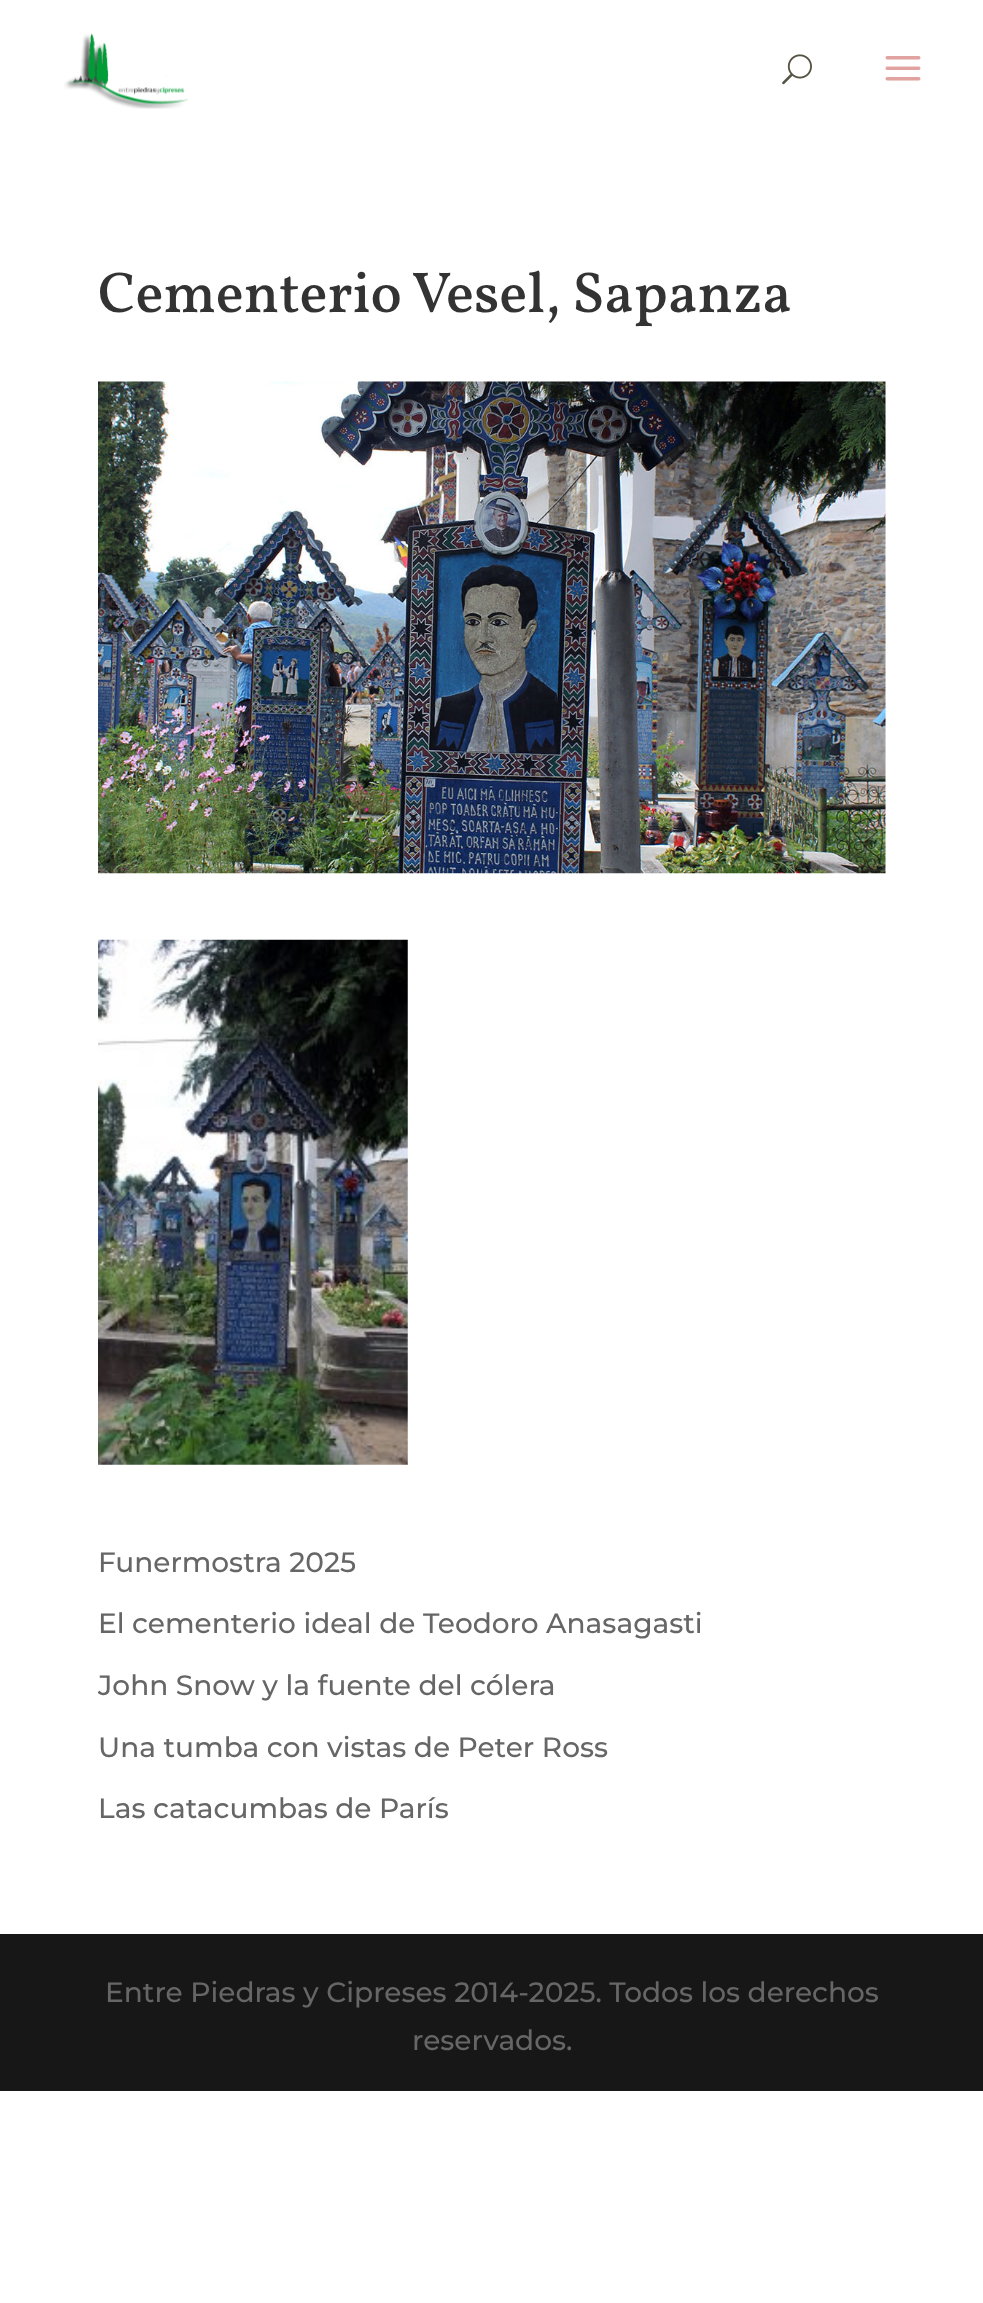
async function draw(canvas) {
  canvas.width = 983
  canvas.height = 2303
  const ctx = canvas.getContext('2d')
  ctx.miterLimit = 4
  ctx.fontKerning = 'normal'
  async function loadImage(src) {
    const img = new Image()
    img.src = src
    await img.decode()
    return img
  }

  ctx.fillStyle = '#fff'
  ctx.fillRect(0, 0, 983, 2303)
  ctx.drawImage(await loadImage('image0.png'), 64, 33, 124, 76)
  ctx.drawImage(await loadImage('image1.png'), 782, 54, 30, 31)
  ctx.drawImage(await loadImage('image2.png'), 885, 56, 36, 25)
  ctx.font = '500 57.75px Vollkorn'
  ctx.fillStyle = '#333'
  ctx.fillText('Cementerio Vesel, Sapanza', 98, 312)
  ctx.drawImage(await loadImage('image3.png'), 98, 381, 788, 493)
  ctx.drawImage(await loadImage('image4.png'), 98, 939, 310, 526)
  ctx.font = '500 28px Montserrat'
  ctx.fillStyle = '#666'
  ctx.fillText('Funermostra 2025', 98, 1572)
  ctx.fillText('El cementerio ideal de Teodoro Anasagasti', 98, 1633)
  ctx.fillText('John Snow y la fuente del cólera', 98, 1695)
  ctx.fillText('Una tumba con vistas de Peter Ross', 98, 1757)
  ctx.fillText('Las catacumbas de París', 98, 1818)
  ctx.fillStyle = '#171717'
  ctx.fillRect(0, 1934, 983, 157)
  ctx.fillStyle = '#666'
  ctx.fillText('Entre Piedras y Cipreses 2014-2025. Todos los derechos', 105, 2002)
  ctx.fillText('reservados.', 412, 2050)
}

draw(document.querySelector('canvas'))
